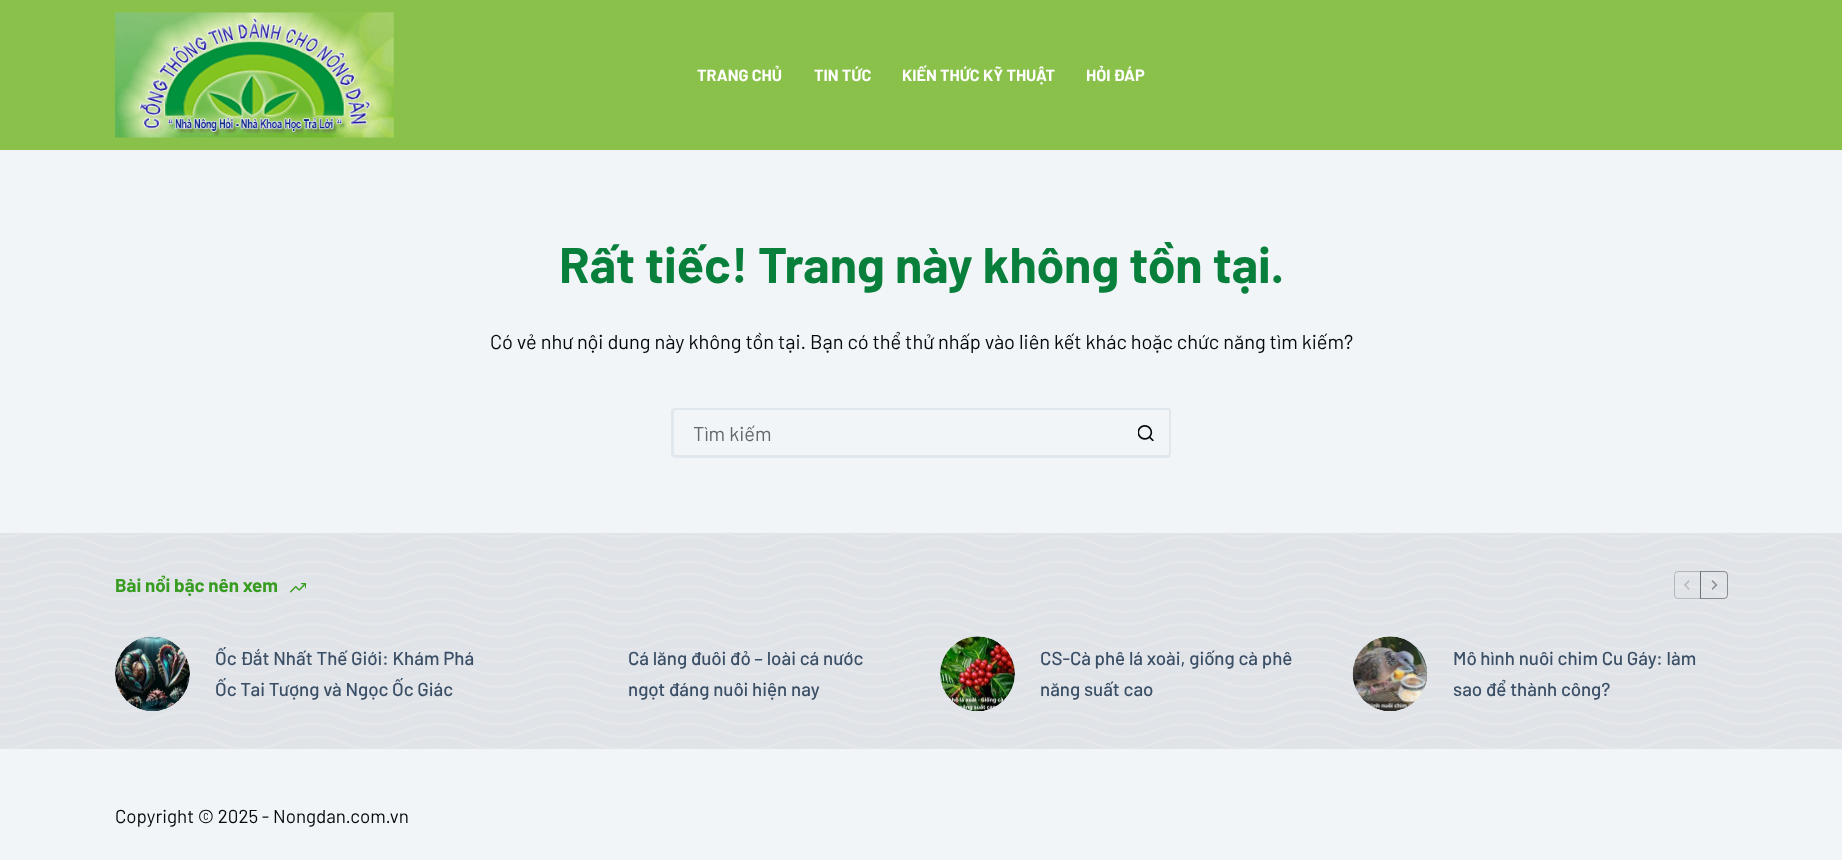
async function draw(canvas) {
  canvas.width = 1842
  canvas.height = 860
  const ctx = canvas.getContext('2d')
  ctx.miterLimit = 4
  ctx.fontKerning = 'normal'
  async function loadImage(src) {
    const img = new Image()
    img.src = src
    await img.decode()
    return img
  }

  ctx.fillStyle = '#f2f5f7'
  ctx.fillRect(0, 0, 1842, 860)
  ctx.fillStyle = '#8ac14b'
  ctx.fillRect(0, 0, 1842, 150)
  ctx.drawImage(await loadImage('image0.png'), 115, 12, 279, 126)
  ctx.font = 'bold 16.25px Barlow'
  ctx.fillStyle = '#fff'
  ctx.fillText('TRANG CHỦ', 697, 81)
  ctx.fillText('TIN TỨC', 814, 81)
  ctx.fillText('KIẾN THỨC KỸ THUẬT', 902, 81)
  ctx.fillText('HỎI ĐÁP', 1086, 81)
  ctx.font = 'bold 50px Barlow'
  ctx.fillStyle = '#08803b'
  ctx.fillText('Rất tiếc! Trang này không tồn tại.', 559, 283)
  ctx.font = '20px Barlow'
  ctx.fillStyle = '#060a0e'
  ctx.fillText('Có vẻ như nội dung này không tồn tại. Bạn có thể thử nhấp vào liên kết khác hoặc chức năng tìm kiếm?', 490, 349)
  ctx.fillStyle = '#e1e8ed'
  ctx.beginPath()
  ctx.moveTo(675, 408)
  ctx.lineTo(1121, 408)
  ctx.lineTo(1121, 458)
  ctx.lineTo(675, 458)
  ctx.bezierCurveTo(673, 458, 671, 456, 671, 454)
  ctx.lineTo(671, 411)
  ctx.bezierCurveTo(671, 409, 673, 408, 675, 408)
  ctx.closePath()
  ctx.moveTo(675, 410)
  ctx.lineTo(1121, 410)
  ctx.lineTo(1121, 455)
  ctx.lineTo(675, 455)
  ctx.lineTo(674, 454)
  ctx.lineTo(674, 411)
  ctx.bezierCurveTo(674, 411, 674, 410, 675, 410)
  ctx.closePath()
  ctx.fill('evenodd')
  ctx.fillStyle = '#64686b'
  ctx.fillText('Tìm kiếm', 693, 441)
  ctx.fillStyle = '#e1e8ed'
  ctx.beginPath()
  ctx.moveTo(1121, 408)
  ctx.lineTo(1168, 408)
  ctx.bezierCurveTo(1170, 408, 1171, 409, 1171, 411)
  ctx.lineTo(1171, 454)
  ctx.bezierCurveTo(1171, 456, 1170, 458, 1168, 458)
  ctx.lineTo(1121, 458)
  ctx.closePath()
  ctx.moveTo(1121, 410)
  ctx.lineTo(1168, 410)
  ctx.bezierCurveTo(1168, 410, 1169, 411, 1169, 411)
  ctx.lineTo(1169, 454)
  ctx.bezierCurveTo(1169, 454, 1168, 455, 1168, 455)
  ctx.lineTo(1121, 455)
  ctx.closePath()
  ctx.fill('evenodd')
  ctx.drawImage(await loadImage('image1.png'), 1138, 425, 16, 16)
  ctx.fillStyle = '#e0e3e8'
  ctx.fillRect(0, 533, 1842, 216)
  ctx.drawImage(await loadImage('image2.png'), 0, 532, 1842, 217)
  ctx.font = 'bold 18.75px Barlow'
  ctx.fillStyle = '#389c21'
  ctx.fillText('Bài nổi bậc nên xem', 115, 592)
  ctx.drawImage(await loadImage('image3.png'), 290, 583, 16, 10)
  ctx.beginPath()
  ctx.roundRect(1674.5, 571.5, 26, 27, [3.5, 0, 0, 3.5])
  ctx.strokeStyle = '#060a0e33'
  ctx.stroke()
  ctx.drawImage(await loadImage('image4.png'), 1684, 580, 6, 10)
  ctx.beginPath()
  ctx.roundRect(1700.5, 571.5, 27, 27, [0, 3.5, 3.5, 0])
  ctx.strokeStyle = '#060a0e66'
  ctx.stroke()
  ctx.drawImage(await loadImage('image5.png'), 1711, 580, 7, 10)
  ctx.drawImage(await loadImage('image6.png'), 115, 636, 75, 75)
  ctx.font = '500 18.75px Barlow'
  ctx.fillStyle = '#3a4f66'
  ctx.fillText('Ốc Đắt Nhất Thế Giới: Khám Phá', 215, 665)
  ctx.fillText('Ốc Tai Tượng và Ngọc Ốc Giác', 215, 696)
  ctx.fillText('Cá lăng đuôi đỏ – loài cá nước', 628, 665)
  ctx.fillText('ngọt đáng nuôi hiện nay', 628, 696)
  ctx.drawImage(await loadImage('image7.png'), 940, 636, 75, 75)
  ctx.fillText('CS-Cà phê lá xoài, giống cà phê', 1040, 665)
  ctx.fillText('năng suất cao', 1040, 696)
  ctx.drawImage(await loadImage('image8.png'), 1352, 636, 76, 75)
  ctx.fillText('Mô hình nuôi chim Cu Gáy: làm', 1453, 665)
  ctx.fillText('sao để thành công?', 1453, 696)
  ctx.font = '18.75px Barlow'
  ctx.fillStyle = '#060a0e'
  ctx.fillText('Copyright © 2025 - Nongdan.com.vn', 115, 823)
}

draw(document.querySelector('canvas'))
